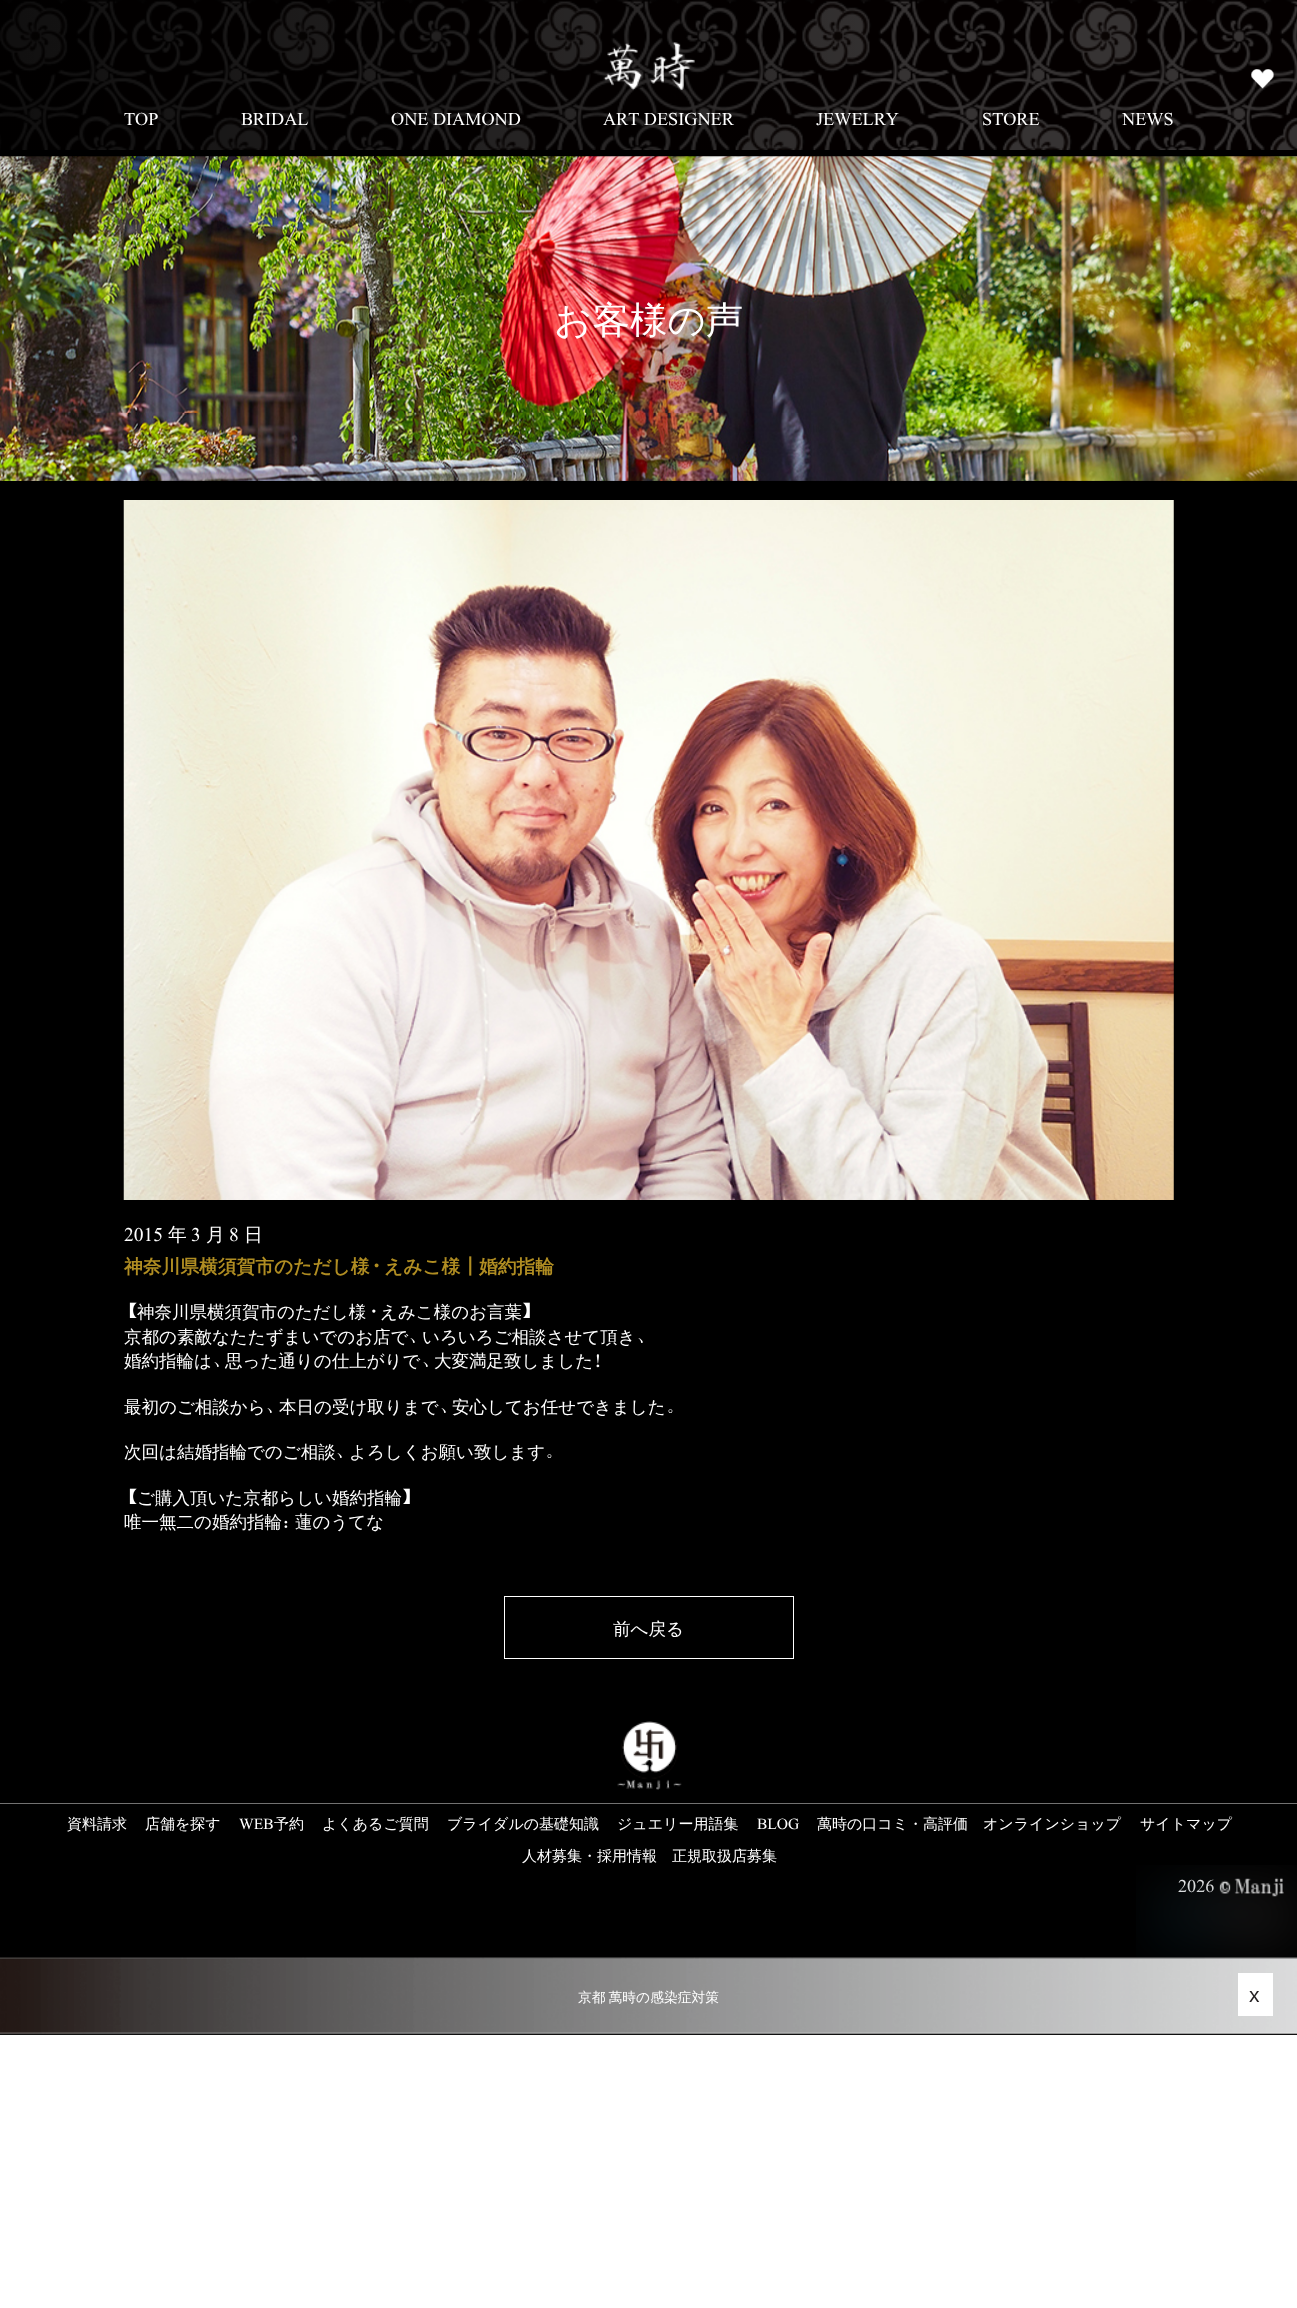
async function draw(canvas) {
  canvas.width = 1297
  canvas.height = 2308
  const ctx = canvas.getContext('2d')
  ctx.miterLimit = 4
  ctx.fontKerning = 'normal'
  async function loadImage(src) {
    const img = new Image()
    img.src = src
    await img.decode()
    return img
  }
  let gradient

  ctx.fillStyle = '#fff'
  ctx.fillRect(0, 0, 1297, 2308)
  ctx.fillStyle = '#000'
  ctx.fillRect(0, 150, 1297, 1885)
  ctx.fillStyle = '#040000'
  ctx.fillRect(0, 0, 1297, 150)
  ctx.drawImage(await loadImage('image0.png'), 0, 0, 1297, 150)
  gradient = ctx.createLinearGradient(0, 75, 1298, 75)
  gradient.addColorStop(0, '#000000b3')
  gradient.addColorStop(0.73, '#00000000')
  gradient.addColorStop(1, '#ffffff00')
  ctx.fillStyle = gradient
  ctx.fillRect(0, 0, 881, 150)
  ctx.drawImage(await loadImage('image1.png'), 603, 42, 92, 48)
  ctx.drawImage(await loadImage('image2.png'), 1251, 69, 23, 20)
  ctx.font = '17.5px Nuosu SIL'
  ctx.fillStyle = '#fff'
  ctx.fillText('TOP', 124, 125)
  ctx.fillText('BRIDAL', 241, 125)
  ctx.fillText('ONE DIAMOND', 391, 125)
  ctx.fillText('ART DESIGNER', 603, 125)
  ctx.fillText('JEWELRY', 816, 125)
  ctx.fillText('STORE', 982, 125)
  ctx.fillText('NEWS', 1122, 125)
  ctx.drawImage(await loadImage('image3.png'), 0, 156, 1297, 325)
  ctx.font = '500 37.5px WenQuanYi Zen Hei'
  ctx.fillText('お客様の声', 554, 333)
  ctx.drawImage(await loadImage('image4.png'), 123, 500, 1051, 700)
  ctx.font = '18.75px Nuosu SIL'
  ctx.fillText('2015', 124, 1241)
  ctx.font = '500 18.75px WenQuanYi Zen Hei'
  ctx.fillText('年', 168, 1241)
  ctx.font = '18.75px Nuosu SIL'
  ctx.fillText('3', 191, 1241)
  ctx.font = '500 18.75px WenQuanYi Zen Hei'
  ctx.fillText('月', 206, 1241)
  ctx.font = '18.75px Nuosu SIL'
  ctx.fillText('8', 229, 1241)
  ctx.font = '500 18.75px WenQuanYi Zen Hei'
  ctx.fillText('日', 244, 1241)
  ctx.font = 'bold 18.75px WenQuanYi Zen Hei'
  ctx.fillStyle = '#b08d22'
  ctx.fillText('神奈川県横須賀市のただし様', 124, 1273)
  ctx.font = 'bold 18.75px Nuosu SIL'
  ctx.fillText('・', 369, 1273)
  ctx.font = 'bold 18.75px WenQuanYi Zen Hei'
  ctx.fillText('えみこ様┃婚約指輪', 384, 1273)
  ctx.font = '17.5px Nuosu SIL'
  ctx.fillStyle = '#fff'
  ctx.fillText('【', 124, 1318)
  ctx.font = '500 17.5px WenQuanYi Zen Hei'
  ctx.fillText('神奈川県横須賀市のただし様', 137, 1318)
  ctx.font = '17.5px Nuosu SIL'
  ctx.fillText('・', 367, 1318)
  ctx.font = '500 17.5px WenQuanYi Zen Hei'
  ctx.fillText('えみこ様のお言葉', 380, 1318)
  ctx.font = '17.5px Nuosu SIL'
  ctx.fillText('】', 522, 1318)
  ctx.font = '500 17.5px WenQuanYi Zen Hei'
  ctx.fillText('京都の素敵なたたずまいでのお店で', 124, 1343)
  ctx.font = '17.5px Nuosu SIL'
  ctx.fillText('、', 408, 1343)
  ctx.font = '500 17.5px WenQuanYi Zen Hei'
  ctx.fillText('いろいろご相談させて頂き', 422, 1343)
  ctx.font = '17.5px Nuosu SIL'
  ctx.fillText('、', 636, 1343)
  ctx.font = '500 17.5px WenQuanYi Zen Hei'
  ctx.fillText('婚約指輪は', 124, 1367)
  ctx.font = '17.5px Nuosu SIL'
  ctx.fillText('、', 212, 1367)
  ctx.font = '500 17.5px WenQuanYi Zen Hei'
  ctx.fillText('思った通りの仕上がりで', 225, 1367)
  ctx.font = '17.5px Nuosu SIL'
  ctx.fillText('、', 421, 1367)
  ctx.font = '500 17.5px WenQuanYi Zen Hei'
  ctx.fillText('大変満足致しました', 434, 1367)
  ctx.font = '17.5px Nuosu SIL'
  ctx.fillText('！', 594, 1367)
  ctx.font = '500 17.5px WenQuanYi Zen Hei'
  ctx.fillText('最初のご相談から', 124, 1413)
  ctx.font = '17.5px Nuosu SIL'
  ctx.fillText('、', 265, 1413)
  ctx.font = '500 17.5px WenQuanYi Zen Hei'
  ctx.fillText('本日の受け取りまで', 279, 1413)
  ctx.font = '17.5px Nuosu SIL'
  ctx.fillText('、', 439, 1413)
  ctx.font = '500 17.5px WenQuanYi Zen Hei'
  ctx.fillText('安心してお任せできました', 452, 1413)
  ctx.font = '17.5px Nuosu SIL'
  ctx.fillText('。', 666, 1413)
  ctx.font = '500 17.5px WenQuanYi Zen Hei'
  ctx.fillText('次回は結婚指輪でのご相談', 124, 1458)
  ctx.font = '17.5px Nuosu SIL'
  ctx.fillText('、', 335, 1458)
  ctx.font = '500 17.5px WenQuanYi Zen Hei'
  ctx.fillText('よろしくお願い致します', 349, 1458)
  ctx.font = '17.5px Nuosu SIL'
  ctx.fillText('。', 545, 1458)
  ctx.fillText('【', 124, 1504)
  ctx.font = '500 17.5px WenQuanYi Zen Hei'
  ctx.fillText('ご購入頂いた京都らしい婚約指輪', 137, 1504)
  ctx.font = '17.5px Nuosu SIL'
  ctx.fillText('】', 402, 1504)
  ctx.font = '500 17.5px WenQuanYi Zen Hei'
  ctx.fillText('唯一無二の婚約指輪', 124, 1528)
  ctx.font = '17.5px Nuosu SIL'
  ctx.fillText('：', 282, 1528)
  ctx.font = '500 17.5px WenQuanYi Zen Hei'
  ctx.fillText('蓮のうてな', 295, 1528)
  ctx.strokeStyle = '#fff'
  ctx.strokeRect(504.5, 1596.5, 289, 62)
  ctx.fillText('前へ戻る', 613, 1635)
  ctx.drawImage(await loadImage('image5.png'), 617, 1721, 65, 69)
  ctx.fillStyle = '#727171'
  ctx.fillRect(0, 1803, 1297, 1)
  ctx.font = '500 15px WenQuanYi Zen Hei'
  ctx.fillStyle = '#fff'
  ctx.fillText('資料請求', 67, 1829)
  ctx.fillText('店舗を探す', 145, 1829)
  ctx.font = '15px Nuosu SIL'
  ctx.fillText('WEB', 239, 1829)
  ctx.font = '500 15px WenQuanYi Zen Hei'
  ctx.fillText('予約', 274, 1829)
  ctx.fillText('よくあるご質問', 322, 1829)
  ctx.fillText('ブライダルの基礎知識', 447, 1829)
  ctx.fillText('ジュエリー用語集', 617, 1829)
  ctx.font = '15px Nuosu SIL'
  ctx.fillText('BLOG', 757, 1829)
  ctx.font = '500 15px WenQuanYi Zen Hei'
  ctx.fillText('萬時の口コミ・高評価', 817, 1829)
  ctx.fillText('オンラインショップ', 983, 1829)
  ctx.fillText('サイトマップ', 1140, 1829)
  ctx.fillText('人材募集・採用情報', 522, 1861)
  ctx.fillText('正規取扱店募集', 672, 1861)
  ctx.font = '17.5px Nuosu SIL'
  ctx.fillText('2026', 1178, 1892)
  ctx.drawImage(await loadImage('image7.png'), 1219, 1877, 65, 20)
  ctx.drawImage(await loadImage('image6.png'), 1136, 1865, 161, 94)
  ctx.drawImage(await loadImage('image8.png'), 0, 1957, 1297, 78)
  ctx.wordSpacing = '-1px'
  ctx.font = '500 13.75px WenQuanYi Zen Hei'
  ctx.fillText('京都 萬時の感染症対策', 578, 2002)
  ctx.fillRect(1238, 1973, 35, 43)
  ctx.wordSpacing = '0px'
  ctx.font = '21px Liberation Sans'
  ctx.fillStyle = '#231f20'
  ctx.fillText('x', 1249, 2002)
}

draw(document.querySelector('canvas'))
